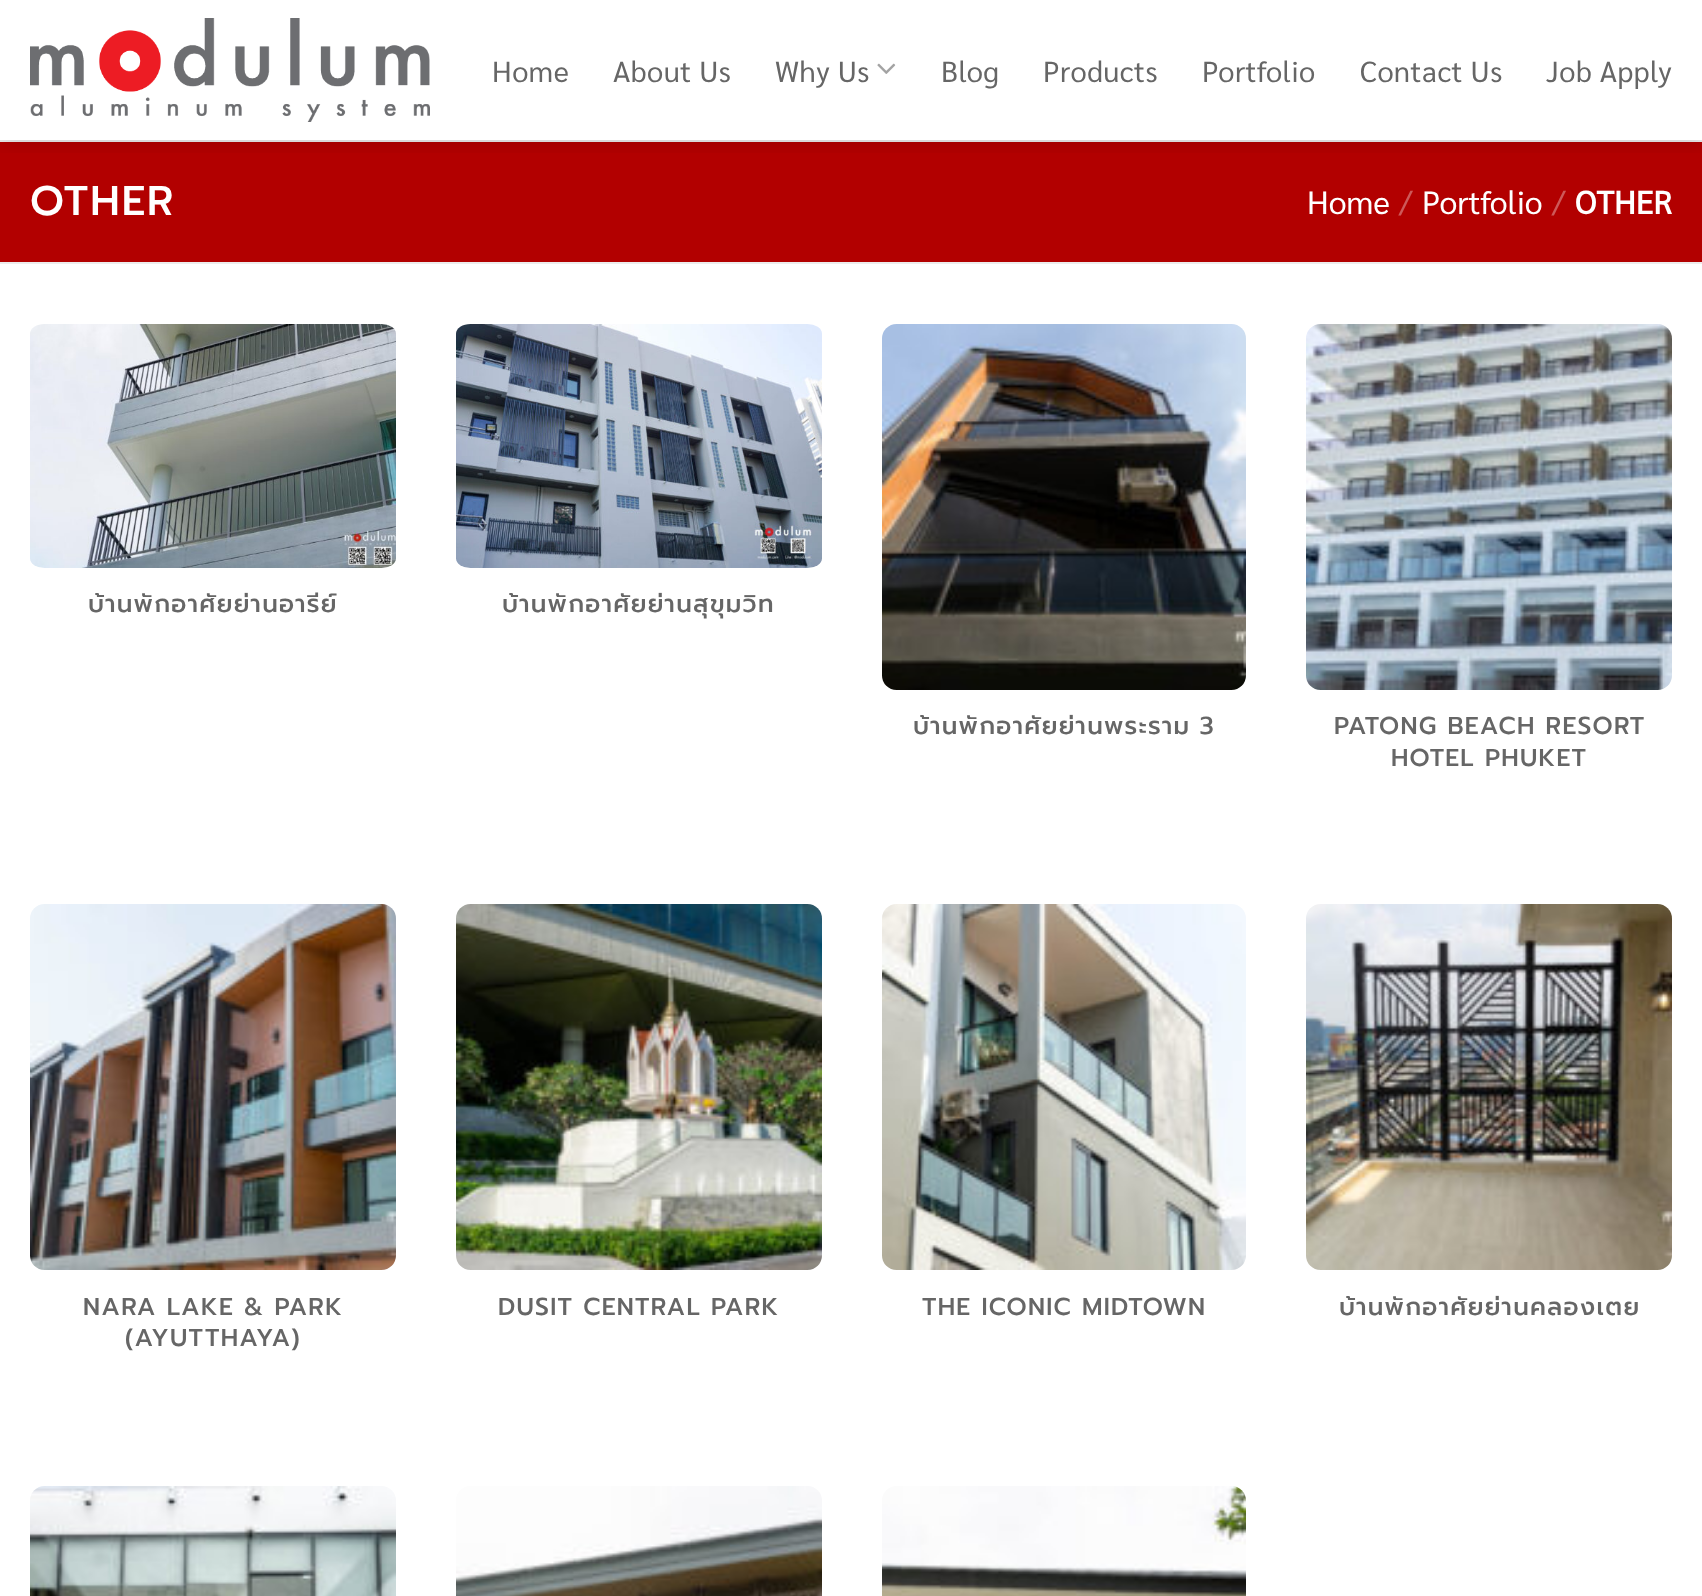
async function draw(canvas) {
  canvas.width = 1702
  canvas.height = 1596
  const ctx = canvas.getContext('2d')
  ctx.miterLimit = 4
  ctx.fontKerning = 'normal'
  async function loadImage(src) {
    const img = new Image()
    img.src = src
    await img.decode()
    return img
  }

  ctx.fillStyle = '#fff'
  ctx.fillRect(0, 0, 1702, 1596)
  ctx.fillStyle = '#b20000'
  ctx.fillRect(0, 142, 1702, 120)
  ctx.fillStyle = '#ececec'
  ctx.fillRect(0, 140, 1702, 2)
  ctx.save()
  ctx.beginPath()
  ctx.rect(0, 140, 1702, 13)
  ctx.clip()
  ctx.fillStyle = '#00000026'
  ctx.filter = 'blur(10px)'
  ctx.beginPath()
  ctx.rect(2, 2, 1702, 140)
  ctx.fill()
  ctx.filter = 'none'
  ctx.restore()
  ctx.drawImage(await loadImage('image0.png'), 30, 18, 400, 104)
  ctx.letterSpacing = '0.5px'
  ctx.font = '29px Sarabun'
  ctx.fillStyle = '#666'
  ctx.fillText('Home', 492, 82)
  ctx.fillText('About Us', 613, 82)
  ctx.fillText('Why Us', 775, 82)
  ctx.drawImage(await loadImage('image1.png'), 877, 63, 19, 11)
  ctx.fillText('Blog', 941, 82)
  ctx.fillText('Products', 1043, 82)
  ctx.fillText('Portfolio', 1202, 82)
  ctx.fillText('Contact Us', 1360, 82)
  ctx.fillText('Job Apply', 1546, 82)
  ctx.fillStyle = '#ececec'
  ctx.fillRect(0, 262, 1702, 2)
  ctx.letterSpacing = '2px'
  ctx.font = '500 41.5px Prompt'
  ctx.fillStyle = '#fff'
  ctx.fillText('OTHER', 30, 215)
  ctx.letterSpacing = '0px'
  ctx.font = '32px Sarabun'
  ctx.fillText('Home', 1307, 214)
  ctx.fillStyle = '#cd5959'
  ctx.fillText('/', 1399, 214)
  ctx.fillStyle = '#fff'
  ctx.fillText('Portfolio', 1422, 214)
  ctx.fillStyle = '#cd5959'
  ctx.fillText('/', 1552, 214)
  ctx.font = 'bold 32px Sarabun'
  ctx.fillStyle = '#fff'
  ctx.fillText('OTHER', 1575, 214)
  ctx.drawImage(await loadImage('image2.png'), 30, 324, 366, 244)
  ctx.letterSpacing = '1.25px'
  ctx.font = '500 24.5px Prompt'
  ctx.fillStyle = '#666'
  ctx.fillText('บ้านพักอาศัยย่านอารีย์', 88, 612)
  ctx.drawImage(await loadImage('image3.png'), 456, 324, 366, 244)
  ctx.fillText('บ้านพักอาศัยย่านสุขุมวิท', 502, 612)
  ctx.drawImage(await loadImage('image4.png'), 882, 324, 364, 366)
  ctx.wordSpacing = '-1px'
  ctx.fillText('บ้านพักอาศัยย่านพระราม 3', 913, 734)
  ctx.drawImage(await loadImage('image5.png'), 1306, 324, 366, 366)
  ctx.wordSpacing = '0px'
  ctx.fillText('PATONG BEACH RESORT', 1334, 734)
  ctx.fillText('HOTEL PHUKET', 1391, 766)
  ctx.drawImage(await loadImage('image6.png'), 30, 904, 366, 366)
  ctx.fillText('NARA LAKE & PARK', 83, 1315)
  ctx.fillText('(AYUTTHAYA)', 125, 1346)
  ctx.drawImage(await loadImage('image7.png'), 456, 904, 366, 366)
  ctx.fillText('DUSIT CENTRAL PARK', 498, 1315)
  ctx.drawImage(await loadImage('image8.png'), 882, 904, 364, 366)
  ctx.fillText('THE ICONIC MIDTOWN', 922, 1315)
  ctx.drawImage(await loadImage('image9.png'), 1306, 904, 366, 366)
  ctx.fillText('บ้านพักอาศัยย่านคลองเตย', 1339, 1315)
  ctx.drawImage(await loadImage('image10.png'), 30, 1486, 366, 110)
  ctx.drawImage(await loadImage('image11.png'), 456, 1486, 366, 110)
  ctx.drawImage(await loadImage('image12.png'), 882, 1486, 364, 110)
}

draw(document.querySelector('canvas'))
